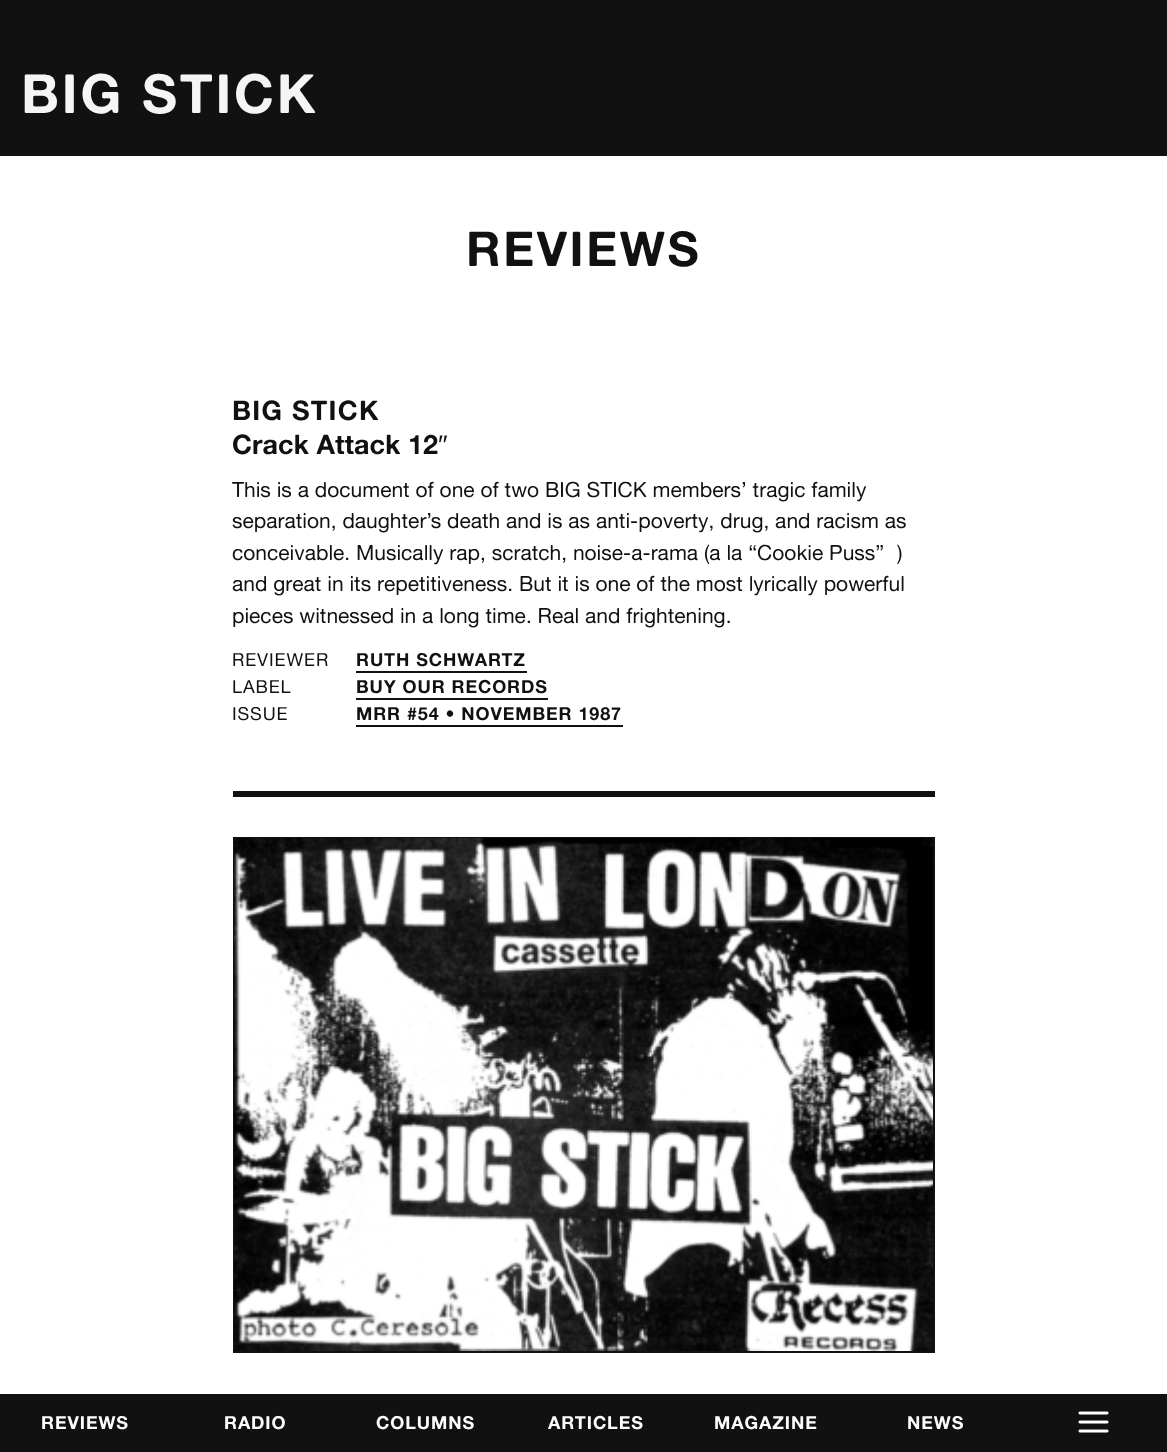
async function draw(canvas) {
  canvas.width = 1167
  canvas.height = 1452
  const ctx = canvas.getContext('2d')
  ctx.miterLimit = 4
  ctx.fontKerning = 'normal'
  async function loadImage(src) {
    const img = new Image()
    img.src = src
    await img.decode()
    return img
  }

  ctx.fillStyle = '#fff'
  ctx.fillRect(0, 0, 1167, 1452)
  ctx.fillStyle = '#111'
  ctx.fillRect(0, 0, 1167, 156)
  ctx.letterSpacing = '2.75px'
  ctx.font = 'bold 54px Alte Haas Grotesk'
  ctx.fillStyle = '#f5f5f5'
  ctx.fillText('BIG STICK', 21, 113)
  ctx.letterSpacing = '2.5px'
  ctx.font = 'bold 48px Alte Haas Grotesk'
  ctx.fillStyle = '#111'
  ctx.fillText('REVIEWS', 466, 266)
  ctx.letterSpacing = '1.25px'
  ctx.font = 'bold 27px Alte Haas Grotesk'
  ctx.fillText('BIG STICK', 232, 420)
  ctx.letterSpacing = '0px'
  ctx.fillText('Crack Attack 12', 232, 454)
  ctx.font = '27px Liberation Sans'
  ctx.fillText('″', 438, 454)
  ctx.font = '21px Alte Haas Grotesk'
  ctx.fillText('This is a document of one of two BIG STICK members’ tragic family', 232, 497)
  ctx.fillText('separation, daughter’s death and is as anti-poverty, drug, and racism as', 232, 528)
  ctx.fillText('conceivable. Musically rap, scratch, noise-a-rama (a la “Cookie Puss”', 232, 560)
  ctx.fillText(')', 897, 560)
  ctx.fillText('and great in its repetitiveness. But it is one of the most lyrically powerful', 232, 591)
  ctx.fillText('pieces witnessed in a long time. Real and frightening.', 232, 623)
  ctx.letterSpacing = '0.9px'
  ctx.font = '18px Alte Haas Grotesk'
  ctx.fillText('REVIEWER', 232, 666)
  ctx.font = 'bold 18px Alte Haas Grotesk'
  ctx.fillText('RUTH SCHWARTZ', 356, 666)
  ctx.fillRect(356, 671, 171, 2)
  ctx.font = '18px Alte Haas Grotesk'
  ctx.fillText('LABEL', 232, 693)
  ctx.font = 'bold 18px Alte Haas Grotesk'
  ctx.fillText('BUY OUR RECORDS', 356, 693)
  ctx.fillRect(356, 698, 192, 2)
  ctx.font = '18px Alte Haas Grotesk'
  ctx.fillText('ISSUE', 232, 720)
  ctx.font = 'bold 18px Alte Haas Grotesk'
  ctx.fillText('MRR #54 • NOVEMBER 1987', 356, 720)
  ctx.fillRect(356, 725, 267, 2)
  ctx.fillRect(233, 791, 702, 6)
  ctx.strokeStyle = '#111'
  ctx.lineWidth = 2
  ctx.strokeRect(234, 838, 700, 514)
  ctx.drawImage(await loadImage('image0.png'), 234, 838, 699, 513)
  ctx.fillRect(0, 1394, 1167, 58)
  ctx.fillStyle = '#fcfcfc'
  ctx.fillText('REVIEWS', 41, 1429)
  ctx.fillText('RADIO', 224, 1429)
  ctx.fillText('COLUMNS', 376, 1429)
  ctx.fillText('ARTICLES', 548, 1429)
  ctx.fillText('MAGAZINE', 714, 1429)
  ctx.fillText('NEWS', 907, 1429)
  ctx.drawImage(await loadImage('image1.png'), 1078, 1411, 31, 22)
}

draw(document.querySelector('canvas'))
